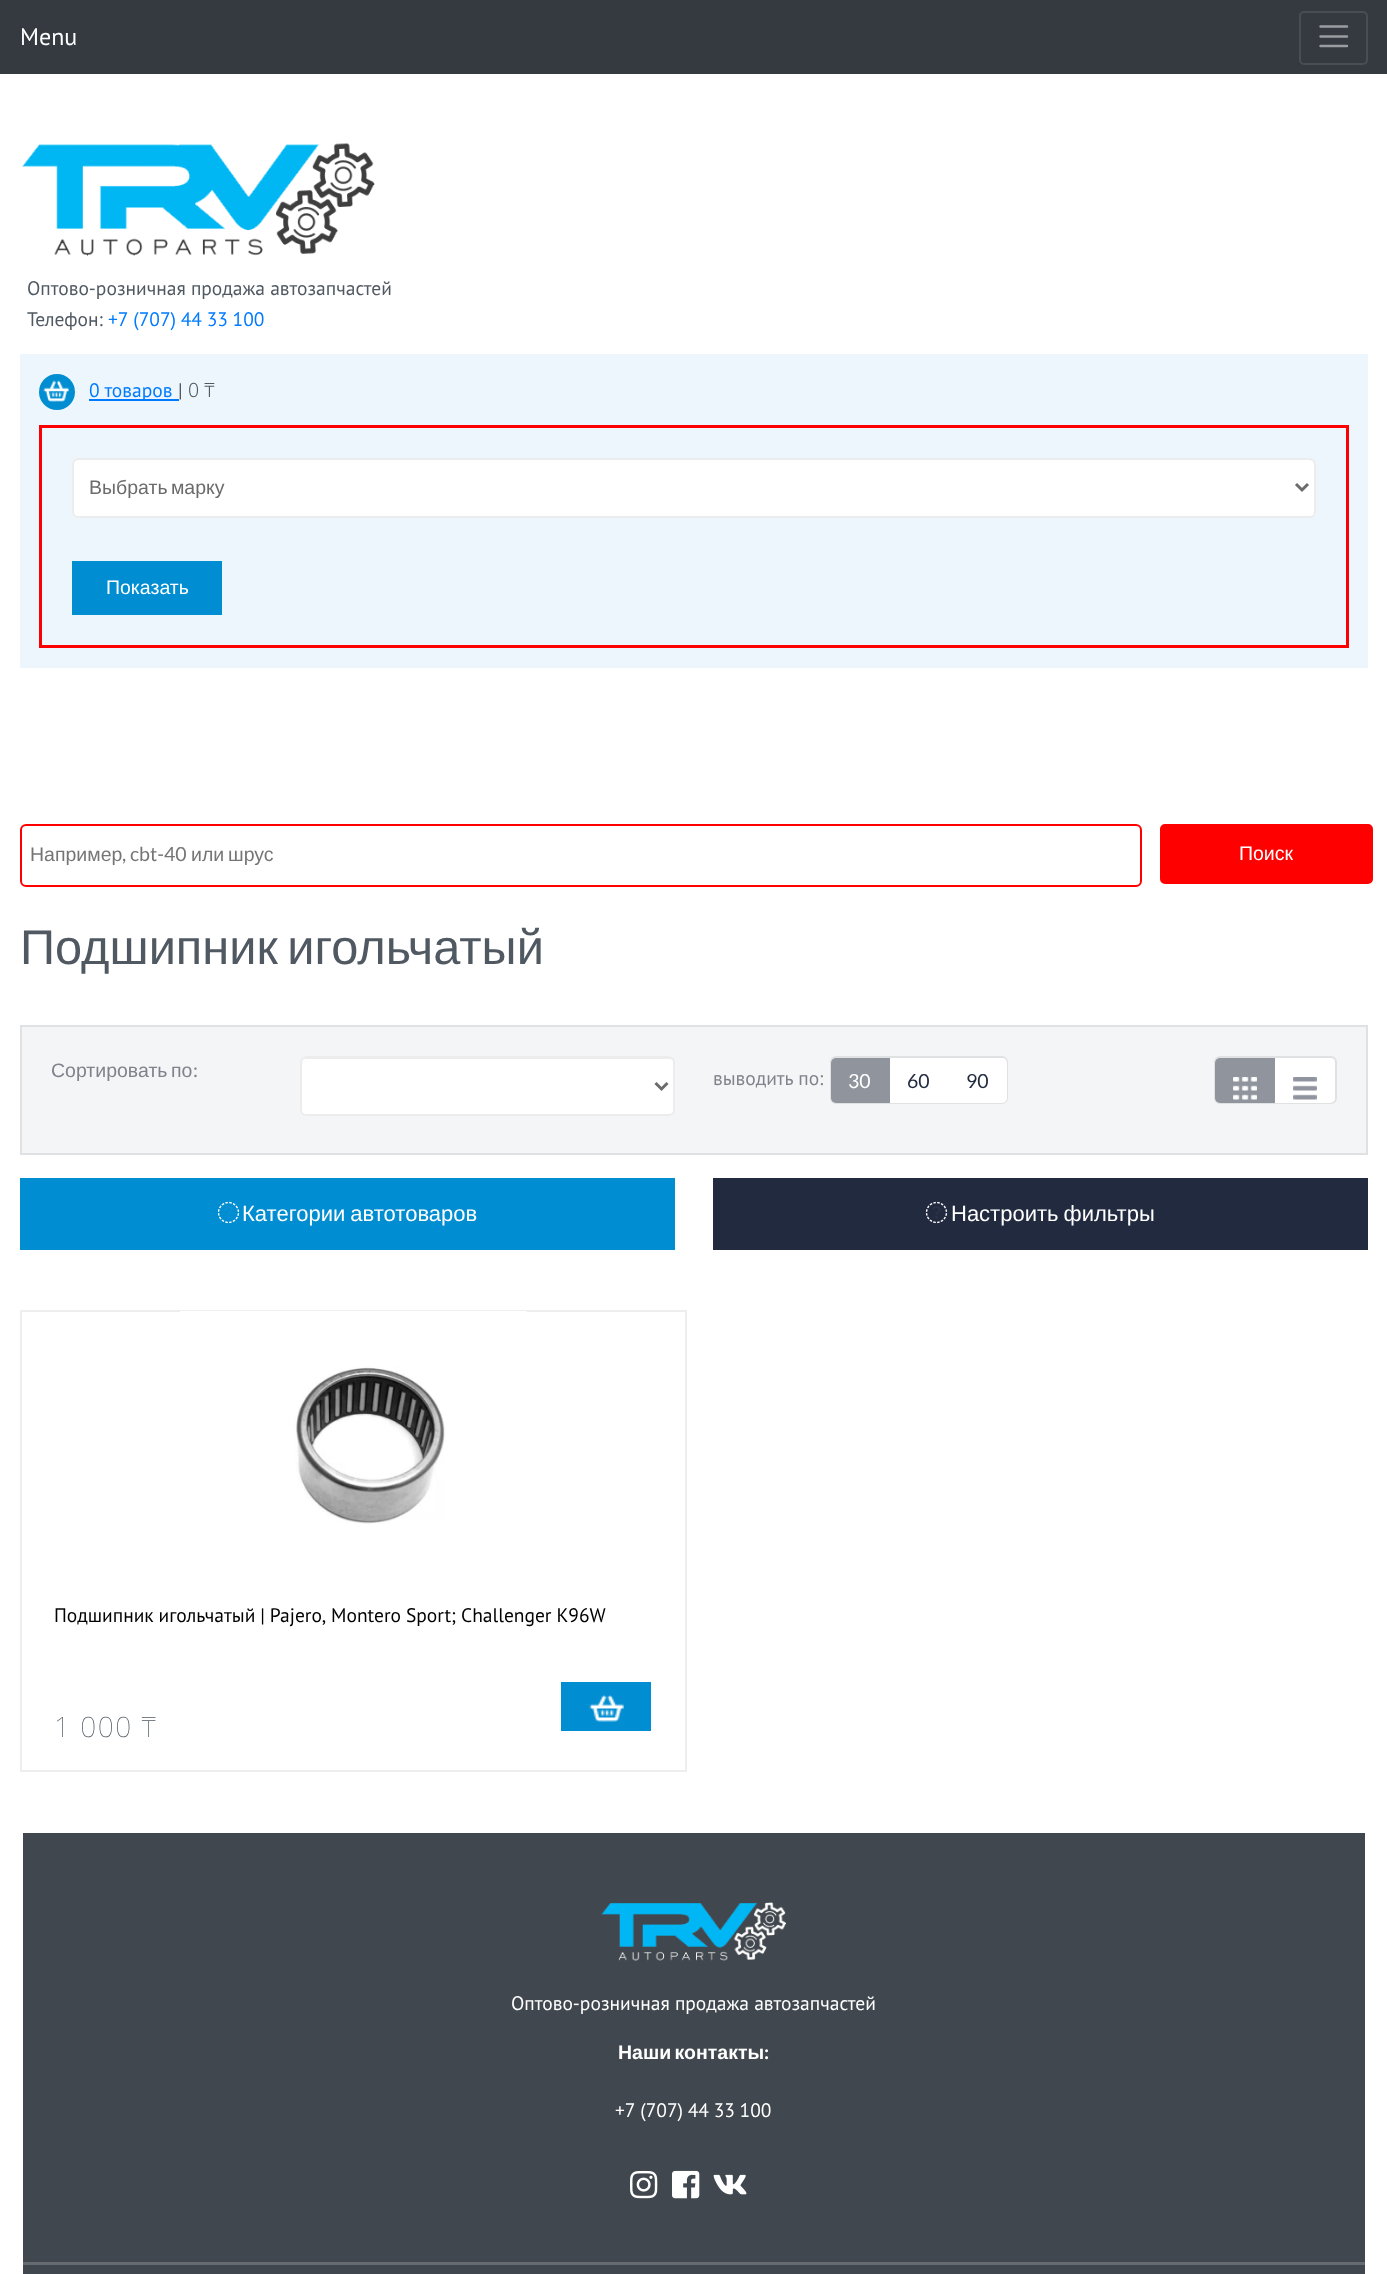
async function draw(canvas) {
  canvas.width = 1387
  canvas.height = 2274
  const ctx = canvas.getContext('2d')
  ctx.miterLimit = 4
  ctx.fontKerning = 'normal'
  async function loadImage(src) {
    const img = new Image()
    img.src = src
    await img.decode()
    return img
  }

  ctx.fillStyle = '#fff'
  ctx.fillRect(0, 0, 1387, 2274)
  ctx.fillStyle = '#343a40'
  ctx.fillRect(0, 0, 1387, 74)
  ctx.font = '24px PT Sans'
  ctx.fillStyle = '#fff'
  ctx.fillText('Menu', 20, 45)
  ctx.beginPath()
  ctx.roundRect(1300, 12, 67, 52, 4)
  ctx.strokeStyle = '#484e53'
  ctx.lineWidth = 2
  ctx.stroke()
  ctx.beginPath()
  ctx.moveTo(1320.5, 26.5)
  ctx.lineTo(1347, 26.5)
  ctx.moveTo(1320.5, 36.5)
  ctx.lineTo(1347, 36.5)
  ctx.moveTo(1320.5, 46)
  ctx.lineTo(1347, 46)
  ctx.strokeStyle = '#9a9da0'
  ctx.lineWidth = 2.4
  ctx.lineCap = 'round'
  ctx.stroke()
  ctx.drawImage(await loadImage('image0.png'), 22, 143, 353, 113)
  ctx.font = '19.5px PT Sans'
  ctx.fillStyle = '#505962'
  ctx.fillText('Оптово-розничная продажа автозапчастей', 27, 295)
  ctx.fillText('Телефон:', 27, 326)
  ctx.wordSpacing = '-0.5px'
  ctx.fillStyle = '#007bff'
  ctx.fillText('+7 (707) 44 33 100', 108, 326)
  ctx.fillStyle = '#edf6fc'
  ctx.fillRect(20, 354, 1348, 314)
  ctx.fillStyle = '#008dd2'
  ctx.beginPath()
  ctx.arc(57, 392, 18, 0, 2 * Math.PI)
  ctx.fill()
  ctx.drawImage(await loadImage('image1.png'), 43, 380, 26, 22)
  ctx.fillStyle = '#007bff'
  ctx.fillRect(89, 399, 90, 2)
  ctx.wordSpacing = '0px'
  ctx.fillText('0 товаров', 89, 397)
  ctx.fillStyle = '#505962'
  ctx.fillText('|', 178, 397)
  ctx.font = '300 19.5px Noto Sans'
  ctx.fillText('0 ₸', 188, 397)
  ctx.strokeStyle = '#f00'
  ctx.lineWidth = 3
  ctx.strokeRect(40.5, 426.5, 1307, 220)
  ctx.fillStyle = '#fff'
  ctx.beginPath()
  ctx.roundRect(72, 458, 1244, 60, 6)
  ctx.fill()
  ctx.fillStyle = '#ececec'
  ctx.beginPath()
  ctx.moveTo(78, 460)
  ctx.lineTo(1310, 460)
  ctx.bezierCurveTo(1312, 460, 1314, 463, 1314, 465)
  ctx.bezierCurveTo(1314, 462, 1312, 459, 1309, 459)
  ctx.lineTo(79, 459)
  ctx.bezierCurveTo(76, 459, 74, 462, 74, 465)
  ctx.bezierCurveTo(74, 463, 76, 460, 78, 460)
  ctx.closePath()
  ctx.fill()
  ctx.beginPath()
  ctx.roundRect(73, 459, 1242, 58, 5)
  ctx.strokeStyle = '#ececec'
  ctx.lineWidth = 2
  ctx.stroke()
  ctx.beginPath()
  ctx.moveTo(1296, 484)
  ctx.lineTo(1302, 490)
  ctx.lineTo(1308, 484)
  ctx.strokeStyle = '#6b6b6b'
  ctx.lineWidth = 3
  ctx.lineCap = 'butt'
  ctx.stroke()
  ctx.wordSpacing = '-2px'
  ctx.font = '19.5px Liberation Sans'
  ctx.fillStyle = '#6b6b6b'
  ctx.fillText('Выбрать марку', 89, 494)
  ctx.fillStyle = '#008dd2'
  ctx.fillRect(72, 561, 150, 54)
  ctx.wordSpacing = '0px'
  ctx.fillStyle = '#fff'
  ctx.fillText('Показать', 106, 594)
  ctx.fillStyle = '#ececec'
  ctx.beginPath()
  ctx.moveTo(26, 826)
  ctx.lineTo(1136, 826)
  ctx.bezierCurveTo(1138, 826, 1140, 829, 1140, 831)
  ctx.bezierCurveTo(1140, 828, 1138, 825, 1135, 825)
  ctx.lineTo(26, 825)
  ctx.bezierCurveTo(23, 825, 21, 828, 21, 831)
  ctx.bezierCurveTo(21, 829, 23, 826, 26, 826)
  ctx.closePath()
  ctx.fill()
  ctx.beginPath()
  ctx.roundRect(21, 825, 1120, 61, 5)
  ctx.strokeStyle = '#f00'
  ctx.lineWidth = 2
  ctx.stroke()
  ctx.fillStyle = '#757575'
  ctx.fillText('Например', 30, 861)
  ctx.font = '19.5px Lato'
  ctx.fillText(', cbt-40', 122, 861)
  ctx.font = '19.5px Liberation Sans'
  ctx.fillText('или', 191, 861)
  ctx.fillText('шрус', 228, 861)
  ctx.fillStyle = '#f00'
  ctx.beginPath()
  ctx.roundRect(1161, 825, 211, 58, 4)
  ctx.fill()
  ctx.stroke()
  ctx.fillStyle = '#fff'
  ctx.fillText('Поиск', 1239, 860)
  ctx.wordSpacing = '-4px'
  ctx.font = '48.75px Liberation Sans'
  ctx.fillStyle = '#505962'
  ctx.fillText('Подшипник игольчатый', 20, 964)
  ctx.fillStyle = '#f4f5f7'
  ctx.beginPath()
  ctx.rect(21, 1026, 1346, 128)
  ctx.fill()
  ctx.strokeStyle = '#e0e1e2'
  ctx.stroke()
  ctx.wordSpacing = '-2px'
  ctx.font = '19.5px Liberation Sans'
  ctx.fillStyle = '#80838b'
  ctx.fillText('Сортировать по', 51, 1077)
  ctx.wordSpacing = '0px'
  ctx.font = '19.5px Lato'
  ctx.fillText(':', 193, 1077)
  ctx.fillStyle = '#fff'
  ctx.beginPath()
  ctx.roundRect(300, 1056, 375, 60, 6)
  ctx.fill()
  ctx.fillStyle = '#ececec'
  ctx.beginPath()
  ctx.moveTo(306, 1059)
  ctx.lineTo(669, 1059)
  ctx.bezierCurveTo(671, 1059, 674, 1061, 674, 1064)
  ctx.lineTo(674, 1063)
  ctx.bezierCurveTo(674, 1060, 672, 1058, 669, 1058)
  ctx.lineTo(307, 1058)
  ctx.bezierCurveTo(304, 1058, 302, 1060, 302, 1063)
  ctx.lineTo(302, 1064)
  ctx.bezierCurveTo(302, 1061, 304, 1059, 306, 1059)
  ctx.closePath()
  ctx.fill()
  ctx.beginPath()
  ctx.roundRect(301, 1057, 373, 58, 5)
  ctx.strokeStyle = '#ececec'
  ctx.stroke()
  ctx.beginPath()
  ctx.moveTo(655.5, 1083)
  ctx.lineTo(661.5, 1089)
  ctx.lineTo(667.5, 1083)
  ctx.strokeStyle = '#6b6b6b'
  ctx.lineWidth = 3
  ctx.stroke()
  ctx.font = '19.5px PT Sans'
  ctx.fillStyle = '#80838b'
  ctx.fillText('выводить по:', 713, 1085)
  ctx.beginPath()
  ctx.roundRect(831, 1057, 176, 46, 5)
  ctx.strokeStyle = '#e0e1e2'
  ctx.lineWidth = 2
  ctx.stroke()
  ctx.fillStyle = '#90949d'
  ctx.beginPath()
  ctx.roundRect(831, 1058, 59, 45, [5, 0, 0, 5])
  ctx.fill()
  ctx.font = '19.5px Lato'
  ctx.fillStyle = '#fff'
  ctx.fillText('30', 848, 1088)
  ctx.fillRect(890, 1058, 58, 45)
  ctx.fillStyle = '#212a3f'
  ctx.fillText('60', 907, 1088)
  ctx.fillStyle = '#fff'
  ctx.beginPath()
  ctx.roundRect(948, 1058, 59, 45, [0, 5, 5, 0])
  ctx.fill()
  ctx.fillStyle = '#212a3f'
  ctx.fillText('90', 966, 1088)
  ctx.beginPath()
  ctx.roundRect(1215, 1057, 121, 46, 5)
  ctx.stroke()
  ctx.fillStyle = '#90949d'
  ctx.beginPath()
  ctx.roundRect(1215, 1058, 60, 45, [5, 0, 0, 5])
  ctx.fill()
  ctx.drawImage(await loadImage('image2.png'), 1233, 1077, 24, 23)
  ctx.fillStyle = '#fff'
  ctx.beginPath()
  ctx.roundRect(1275, 1058, 60, 45, [0, 5, 5, 0])
  ctx.fill()
  ctx.drawImage(await loadImage('image3.png'), 1293, 1077, 24, 23)
  ctx.fillStyle = '#008dd2'
  ctx.fillRect(20, 1178, 655, 72)
  ctx.drawImage(await loadImage('image4.png'), 217, 1201, 23, 23)
  ctx.wordSpacing = '-1px'
  ctx.font = '22px Liberation Sans'
  ctx.fillStyle = '#fff'
  ctx.fillText('Категории автотоваров', 242, 1221)
  ctx.fillStyle = '#212a3f'
  ctx.fillRect(713, 1178, 655, 72)
  ctx.drawImage(await loadImage('image5.png'), 925, 1201, 23, 23)
  ctx.fillStyle = '#fff'
  ctx.fillText('Настроить фильтры', 951, 1221)
  ctx.strokeStyle = '#eee'
  ctx.strokeRect(21, 1311, 665, 460)
  ctx.drawImage(await loadImage('image6.png'), 180, 1311, 347, 213)
  ctx.wordSpacing = '-0.25px'
  ctx.font = '19.5px PT Sans'
  ctx.fillStyle = '#000'
  ctx.fillText('Подшипник игольчатый | Pajero, Montero Sport; Challenger K96W', 54, 1622)
  ctx.letterSpacing = '1.5px'
  ctx.wordSpacing = '0px'
  ctx.font = '100 28px Noto Sans'
  ctx.fillStyle = '#505962'
  ctx.fillText('1 000 ₸', 54, 1737)
  ctx.fillStyle = '#008dd2'
  ctx.fillRect(561, 1682, 90, 49)
  ctx.drawImage(await loadImage('image7.png'), 589, 1693, 35, 29)
  ctx.fillStyle = '#40474e'
  ctx.fillRect(23, 1833, 1342, 441)
  ctx.drawImage(await loadImage('image8.png'), 601, 1902, 185, 59)
  ctx.letterSpacing = '0px'
  ctx.font = '19.5px PT Sans'
  ctx.fillStyle = '#fff'
  ctx.fillText('Оптово-розничная продажа автозапчастей', 511, 2010)
  ctx.wordSpacing = '-2px'
  ctx.font = 'bold 19.5px Liberation Sans'
  ctx.fillText('Наши контакты', 618, 2059)
  ctx.wordSpacing = '0px'
  ctx.font = 'bold 19.5px Lato'
  ctx.fillText(':', 764, 2059)
  ctx.wordSpacing = '-0.5px'
  ctx.font = '19.5px PT Sans'
  ctx.fillText('+7 (707) 44 33 100', 615, 2117)
  ctx.drawImage(await loadImage('image9.png'), 630, 2170, 28, 29)
  ctx.drawImage(await loadImage('image10.png'), 672, 2170, 28, 29)
  ctx.drawImage(await loadImage('image11.png'), 713, 2174, 34, 21)
  ctx.fillStyle = '#666b71'
  ctx.fillRect(23, 2262, 1342, 3)
}

draw(document.querySelector('canvas'))
